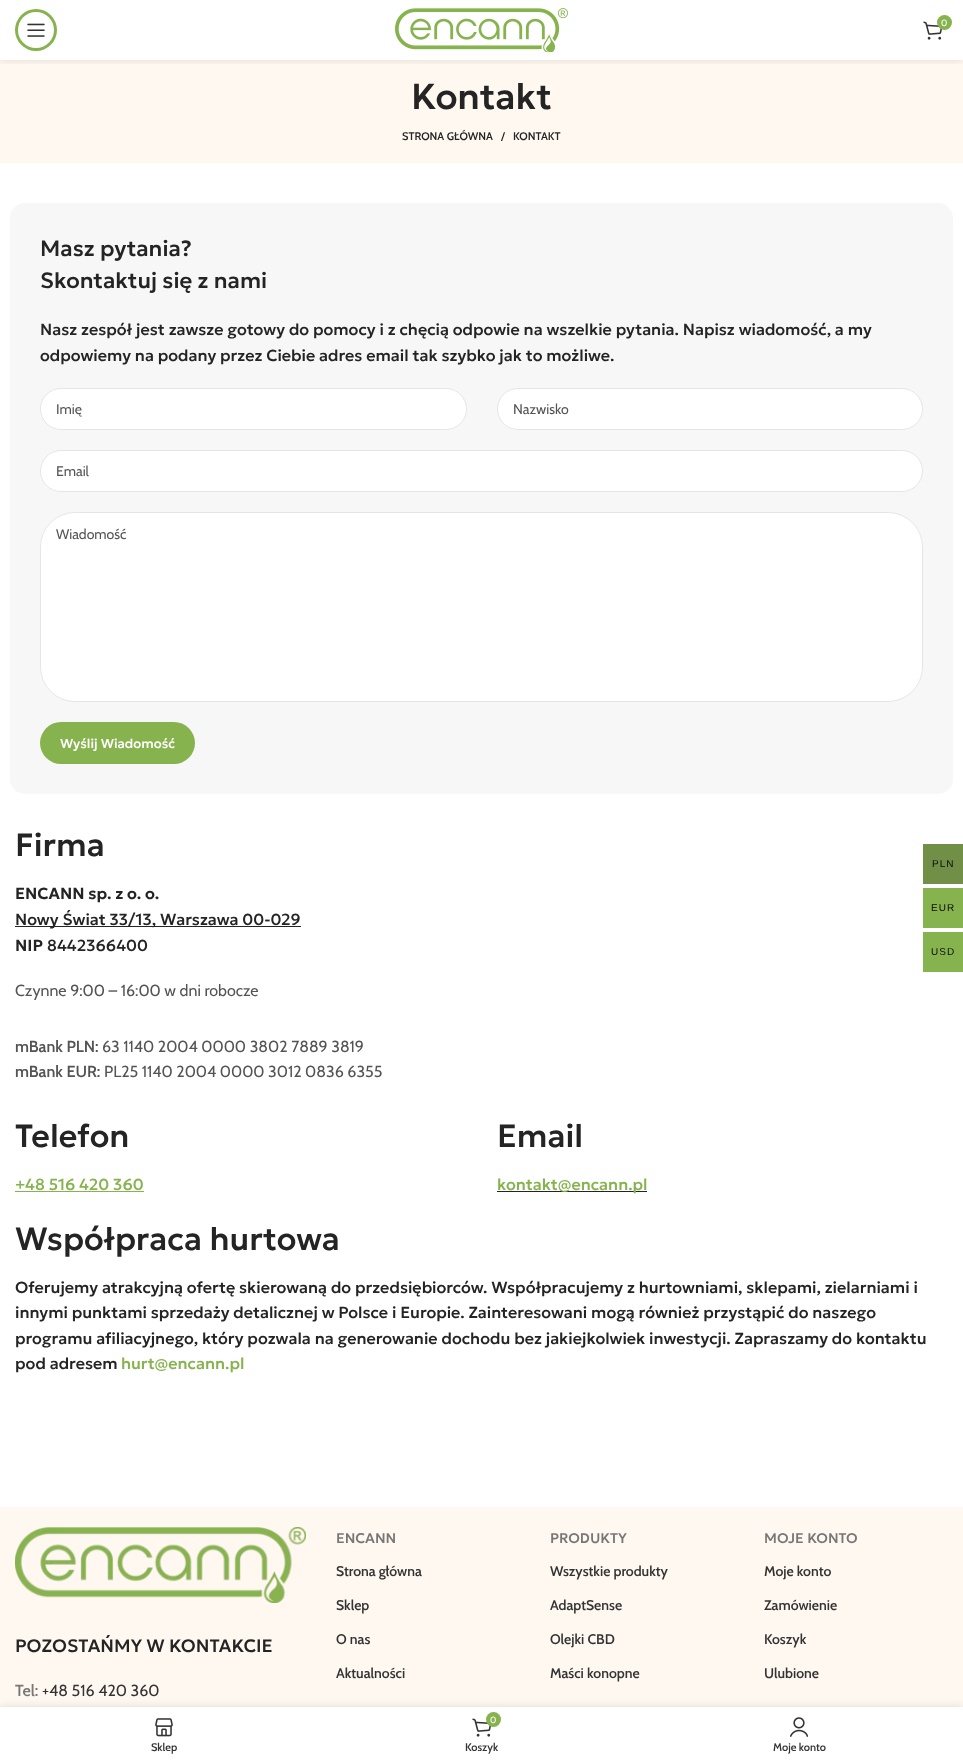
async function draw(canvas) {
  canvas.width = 963
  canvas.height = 1762
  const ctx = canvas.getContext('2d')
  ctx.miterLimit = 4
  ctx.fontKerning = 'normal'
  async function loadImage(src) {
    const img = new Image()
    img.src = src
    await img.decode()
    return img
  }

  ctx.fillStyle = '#fff'
  ctx.fillRect(0, 0, 963, 1762)
  ctx.fillStyle = '#fff8f0'
  ctx.fillRect(0, 60, 963, 103)
  ctx.save()
  ctx.beginPath()
  ctx.rect(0, 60, 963, 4)
  ctx.clip()
  ctx.fillStyle = '#0000001a'
  ctx.filter = 'blur(4px)'
  ctx.beginPath()
  ctx.rect(0, 1, 963, 60)
  ctx.fill()
  ctx.filter = 'none'
  ctx.restore()
  ctx.fillStyle = '#87b34f'
  ctx.beginPath()
  ctx.arc(36, 30, 21, 0, 2 * Math.PI)
  ctx.fill()
  ctx.fillStyle = '#fff'
  ctx.beginPath()
  ctx.arc(36, 30, 18, 0, 2 * Math.PI)
  ctx.fill()
  ctx.drawImage(await loadImage('image0.png'), 27, 23, 18, 14)
  ctx.drawImage(await loadImage('image1.png'), 395, 8, 173, 44)
  ctx.drawImage(await loadImage('image2.png'), 923, 21, 19, 19)
  ctx.fillStyle = '#87b34f'
  ctx.beginPath()
  ctx.arc(944.5, 22.5, 7.5, 0, 2 * Math.PI)
  ctx.fill()
  ctx.font = '9px Cabin'
  ctx.fillStyle = '#fff'
  ctx.fillText('0', 941, 26)
  ctx.font = '500 36px Geologica'
  ctx.fillStyle = '#242424'
  ctx.fillText('Kontakt', 411, 109)
  ctx.font = '600 11px Cabin'
  ctx.fillText('STRONA GŁÓWNA', 402, 140)
  ctx.fillText('/', 501, 140)
  ctx.fillText('KONTAKT', 513, 140)
  ctx.fillStyle = '#f7f7f7'
  ctx.beginPath()
  ctx.roundRect(10, 203, 943, 591, 15)
  ctx.fill()
  ctx.font = '500 22px Geologica'
  ctx.fillStyle = '#242424'
  ctx.fillText('Masz pytania?', 40, 256)
  ctx.fillText('Skontaktuj się z nami', 40, 288)
  ctx.font = '500 16px Geologica'
  ctx.fillText('Nasz zespół jest zawsze gotowy do pomocy i z chęcią odpowie na wszelkie pytania. Napisz wiadomość, a my', 40, 335)
  ctx.fillText('odpowiemy na podany przez Ciebie adres email tak szybko jak to możliwe.', 40, 361)
  ctx.fillStyle = '#fff'
  ctx.beginPath()
  ctx.roundRect(40, 388, 427, 42, 21)
  ctx.fill()
  ctx.beginPath()
  ctx.roundRect(40.5, 388.5, 426, 41, 20.5)
  ctx.strokeStyle = '#0000001a'
  ctx.stroke()
  ctx.font = '14px Cabin'
  ctx.fillStyle = '#545454'
  ctx.fillText('Imię', 56, 414)
  ctx.fillStyle = '#fff'
  ctx.beginPath()
  ctx.roundRect(497, 388, 426, 42, 21)
  ctx.fill()
  ctx.beginPath()
  ctx.roundRect(497.5, 388.5, 425, 41, 20.5)
  ctx.stroke()
  ctx.fillStyle = '#545454'
  ctx.fillText('Nazwisko', 513, 414)
  ctx.fillStyle = '#fff'
  ctx.beginPath()
  ctx.roundRect(40, 450, 883, 42, 21)
  ctx.fill()
  ctx.beginPath()
  ctx.roundRect(40.5, 450.5, 882, 41, 20.5)
  ctx.stroke()
  ctx.fillStyle = '#545454'
  ctx.fillText('Email', 56, 476)
  ctx.fillStyle = '#fff'
  ctx.beginPath()
  ctx.roundRect(40, 512, 883, 190, 35)
  ctx.fill()
  ctx.beginPath()
  ctx.roundRect(40.5, 512.5, 882, 189, 34.5)
  ctx.stroke()
  ctx.fillStyle = '#545454'
  ctx.fillText('Wiadomość', 56, 539)
  ctx.fillStyle = '#87b34f'
  ctx.beginPath()
  ctx.roundRect(40, 722, 155, 42, 21)
  ctx.fill()
  ctx.font = '500 13px Geologica'
  ctx.fillStyle = '#fff'
  ctx.fillText('Wyślij Wiadomość', 60, 748)
  ctx.font = '500 32px Geologica'
  ctx.fillStyle = '#242424'
  ctx.fillText('Firma', 15, 856)
  ctx.font = '600 16px Geologica'
  ctx.fillText('ENCANN sp. z o. o.', 15, 899)
  ctx.fillRect(15, 926, 286, 1)
  ctx.font = '500 16px Geologica'
  ctx.fillText('Nowy Świat 33/13, Warszawa 00-029', 15, 925)
  ctx.font = '600 16px Geologica'
  ctx.fillText('NIP', 15, 951)
  ctx.font = '500 16px Geologica'
  ctx.fillText('8442366400', 47, 951)
  ctx.font = '16px Cabin'
  ctx.fillStyle = '#545454'
  ctx.fillText('Czynne 9:00 – 16:00 w dni robocze', 15, 996)
  ctx.font = '600 16px Cabin'
  ctx.fillText('mBank PLN:', 15, 1052)
  ctx.font = '16px Cabin'
  ctx.fillText('63 1140 2004 0000 3802 7889 3819', 102, 1052)
  ctx.font = '600 16px Cabin'
  ctx.fillText('mBank EUR:', 15, 1077)
  ctx.font = '16px Cabin'
  ctx.fillText('PL25 1140 2004 0000 3012 0836 6355', 104, 1077)
  ctx.font = '500 32px Geologica'
  ctx.fillStyle = '#242424'
  ctx.fillText('Telefon', 15, 1147)
  ctx.font = '500 16px Geologica'
  ctx.fillStyle = '#87b34f'
  ctx.fillText('+48 516 420 360', 15, 1190)
  ctx.fillRect(15, 1191, 129, 1)
  ctx.font = '500 32px Geologica'
  ctx.fillStyle = '#242424'
  ctx.fillText('Email', 497, 1147)
  ctx.fillRect(497, 1191, 150, 1)
  ctx.font = '500 16px Geologica'
  ctx.fillStyle = '#87b34f'
  ctx.fillText('kontakt@encann.pl', 497, 1190)
  ctx.font = '500 32px Geologica'
  ctx.fillStyle = '#242424'
  ctx.fillText('Współpraca hurtowa', 15, 1250)
  ctx.font = '500 16px Geologica'
  ctx.fillText('Oferujemy atrakcyjną ofertę skierowaną do przedsiębiorców. Współpracujemy z hurtowniami, sklepami, zielarniami i', 15, 1293)
  ctx.fillText('innymi punktami sprzedaży detalicznej w Polsce i Europie. Zainteresowani mogą również przystąpić do naszego', 15, 1318)
  ctx.fillText('programu afiliacyjnego, który pozwala na generowanie dochodu bez jakiejkolwiek inwestycji. Zapraszamy do kontaktu', 15, 1344)
  ctx.fillText('pod adresem', 15, 1369)
  ctx.fillStyle = '#87b34f'
  ctx.fillText('hurt@encann.pl', 121, 1369)
  ctx.fillStyle = '#fff8f0'
  ctx.fillRect(0, 1507, 963, 200)
  ctx.drawImage(await loadImage('image3.png'), 15, 1527, 291, 76)
  ctx.font = '500 18px Geologica'
  ctx.fillStyle = '#242424'
  ctx.fillText('POZOSTAŃMY W KONTAKCIE', 15, 1652)
  ctx.font = '600 16px Cabin'
  ctx.fillStyle = '#777'
  ctx.fillText('Tel:', 15, 1696)
  ctx.font = '16px Cabin'
  ctx.fillStyle = '#333'
  ctx.fillText('+48 516 420 360', 42, 1696)
  ctx.font = '500 14px Geologica'
  ctx.fillStyle = '#777'
  ctx.fillText('ENCANN', 336, 1543)
  ctx.font = '600 14px Cabin'
  ctx.fillStyle = '#333'
  ctx.fillText('Strona główna', 336, 1576)
  ctx.fillText('Sklep', 336, 1610)
  ctx.fillText('O nas', 336, 1644)
  ctx.fillText('Aktualności', 336, 1678)
  ctx.font = '500 14px Geologica'
  ctx.fillStyle = '#777'
  ctx.fillText('PRODUKTY', 550, 1543)
  ctx.font = '600 14px Cabin'
  ctx.fillStyle = '#333'
  ctx.fillText('Wszystkie produkty', 550, 1576)
  ctx.fillText('AdaptSense', 550, 1610)
  ctx.fillText('Olejki CBD', 550, 1644)
  ctx.fillText('Maści konopne', 550, 1678)
  ctx.font = '500 14px Geologica'
  ctx.fillStyle = '#777'
  ctx.fillText('MOJE KONTO', 764, 1543)
  ctx.font = '600 14px Cabin'
  ctx.fillStyle = '#333'
  ctx.fillText('Moje konto', 764, 1576)
  ctx.fillText('Zamówienie', 764, 1610)
  ctx.fillText('Koszyk', 764, 1644)
  ctx.fillText('Ulubione', 764, 1678)
  ctx.fillStyle = '#718f46'
  ctx.fillRect(923, 844, 40, 40)
  ctx.letterSpacing = '1px'
  ctx.font = '10px Liberation Sans'
  ctx.fillStyle = '#0c0c0c'
  ctx.fillText('PLN', 932, 867)
  ctx.fillStyle = '#87b34e'
  ctx.fillRect(923, 888, 40, 40)
  ctx.fillStyle = '#0c0c0c'
  ctx.fillText('EUR', 931, 911)
  ctx.fillStyle = '#87b34e'
  ctx.fillRect(923, 932, 40, 40)
  ctx.fillStyle = '#0c0c0c'
  ctx.fillText('USD', 931, 955)
  ctx.fillStyle = '#0000001f'
  ctx.filter = 'blur(4.5px)'
  ctx.beginPath()
  ctx.rect(0, 1707, 963, 55)
  ctx.fill()
  ctx.filter = 'none'
  ctx.fillStyle = '#fff'
  ctx.fillRect(0, 1707, 963, 55)
  ctx.drawImage(await loadImage('image4.png'), 155, 1718, 18, 19)
  ctx.letterSpacing = '0px'
  ctx.font = '600 11px Cabin'
  ctx.fillStyle = '#333'
  ctx.fillText('Sklep', 151, 1751)
  ctx.drawImage(await loadImage('image2.png'), 472, 1718, 19, 19)
  ctx.fillStyle = '#87b34f'
  ctx.beginPath()
  ctx.arc(493.5, 1719.5, 7.5, 0, 2 * Math.PI)
  ctx.fill()
  ctx.font = '9px Cabin'
  ctx.fillStyle = '#fff'
  ctx.fillText('0', 490, 1723)
  ctx.font = '600 11px Cabin'
  ctx.fillStyle = '#333'
  ctx.fillText('Koszyk', 465, 1751)
  ctx.drawImage(await loadImage('image5.png'), 790, 1717, 18, 20)
  ctx.fillText('Moje konto', 773, 1751)
}

draw(document.querySelector('canvas'))
